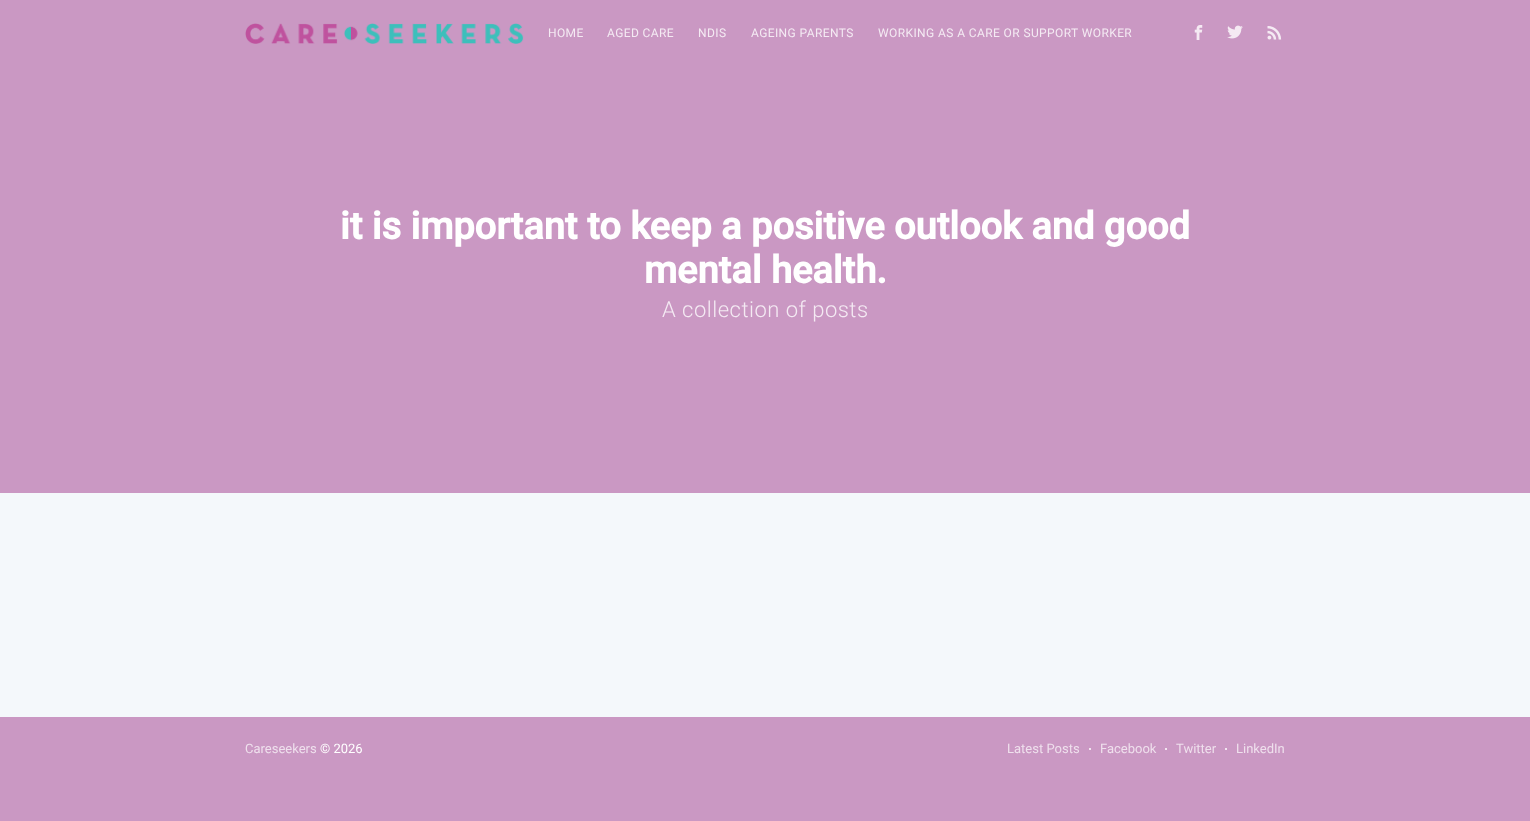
async function draw(canvas) {
  canvas.width = 1530
  canvas.height = 821
  const ctx = canvas.getContext('2d')
  ctx.miterLimit = 4
  ctx.fontKerning = 'normal'
  async function loadImage(src) {
    const img = new Image()
    img.src = src
    await img.decode()
    return img
  }

  ctx.fillStyle = '#f4f8fb'
  ctx.fillRect(0, 0, 1530, 821)
  ctx.fillStyle = '#ca98c3'
  ctx.fillRect(0, 0, 1530, 493)
  ctx.drawImage(await loadImage('image0.png'), 245, 23, 279, 21)
  ctx.letterSpacing = '0.4px'
  ctx.font = '12px Roboto'
  ctx.fillStyle = '#f4eaf3'
  ctx.fillText('HOME', 548, 37)
  ctx.fillText('AGED CARE', 607, 37)
  ctx.fillText('NDIS', 698, 37)
  ctx.fillText('AGEING PARENTS', 751, 37)
  ctx.fillText('WORKING AS A CARE OR SUPPORT WORKER', 878, 37)
  ctx.drawImage(await loadImage('image1.png'), 1194, 25, 9, 15)
  ctx.drawImage(await loadImage('image2.png'), 1227, 25, 16, 14)
  ctx.drawImage(await loadImage('image3.png'), 1267, 26, 15, 14)
  ctx.letterSpacing = '0px'
  ctx.font = 'bold 38px Roboto'
  ctx.fillStyle = '#fff'
  ctx.fillText('it is important to keep a positive outlook and good', 340, 239)
  ctx.fillText('mental health.', 644, 283)
  ctx.letterSpacing = '0.5px'
  ctx.font = '300 22px Roboto'
  ctx.fillStyle = '#f4eaf3'
  ctx.fillText('A collection of posts', 662, 317)
  ctx.fillStyle = '#ca98c3'
  ctx.fillRect(0, 717, 1530, 104)
  ctx.letterSpacing = '0px'
  ctx.font = '13px Roboto'
  ctx.fillStyle = '#efe0ed'
  ctx.fillText('Careseekers', 245, 753)
  ctx.fillStyle = '#fff'
  ctx.fillText('© 2026', 320, 753)
  ctx.fillStyle = '#efe0ed'
  ctx.fillText('Latest Posts', 1007, 753)
  ctx.fillStyle = '#fff'
  ctx.beginPath()
  ctx.arc(1090, 749, 1, 0, 2 * Math.PI)
  ctx.fill()
  ctx.fillStyle = '#efe0ed'
  ctx.fillText('Facebook', 1100, 753)
  ctx.fillStyle = '#fff'
  ctx.beginPath()
  ctx.arc(1166, 749, 1, 0, 2 * Math.PI)
  ctx.fill()
  ctx.fillStyle = '#efe0ed'
  ctx.fillText('Twitter', 1176, 753)
  ctx.fillStyle = '#fff'
  ctx.beginPath()
  ctx.arc(1226, 749, 1, 0, 2 * Math.PI)
  ctx.fill()
  ctx.fillStyle = '#efe0ed'
  ctx.fillText('LinkedIn', 1236, 753)
}

draw(document.querySelector('canvas'))
